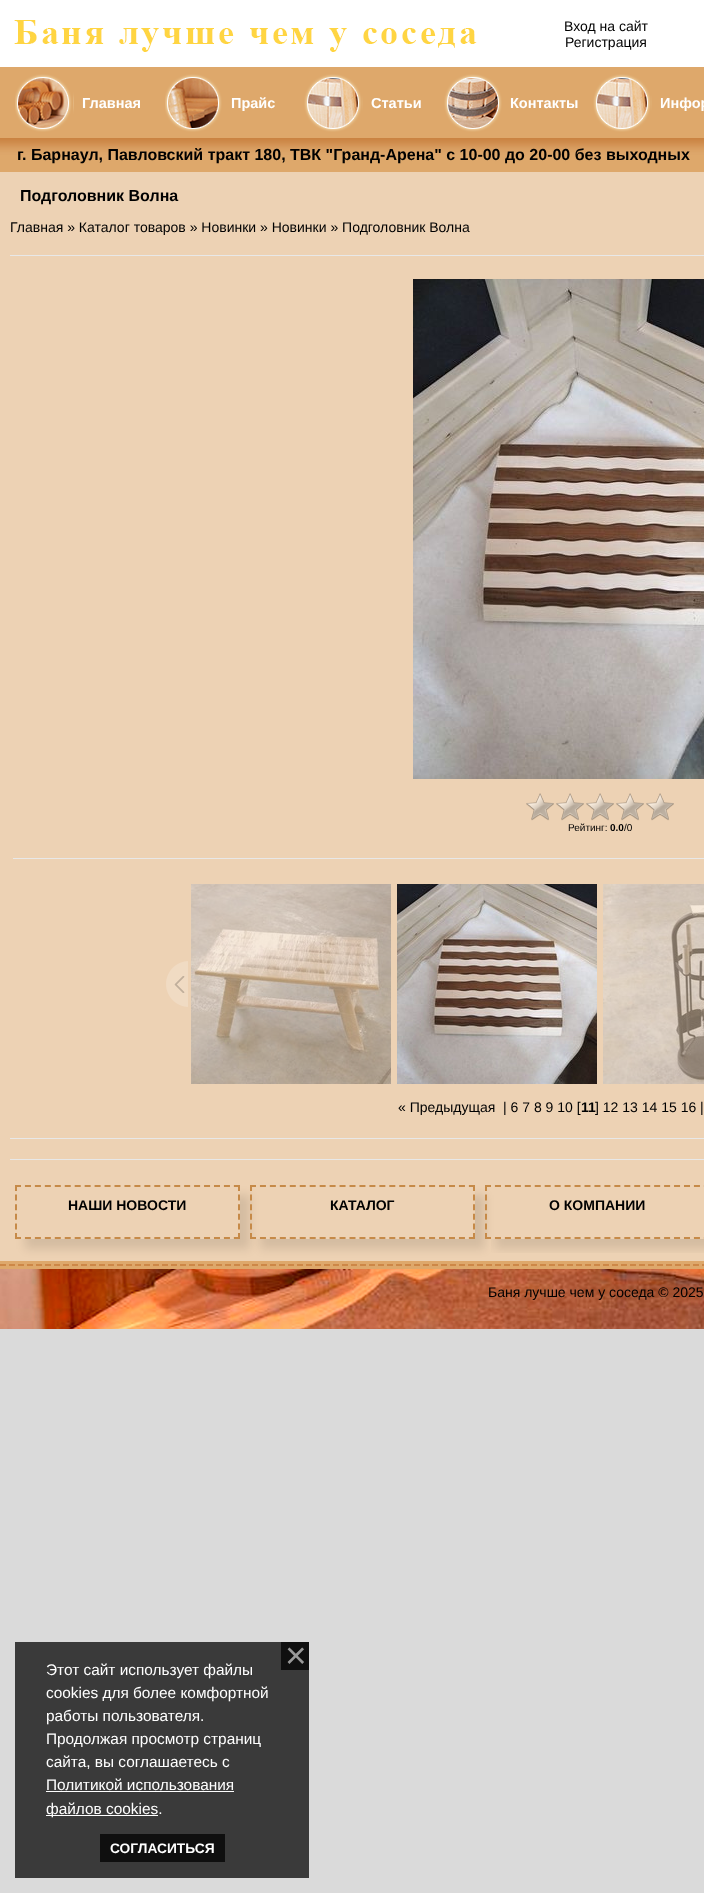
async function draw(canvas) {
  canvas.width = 704
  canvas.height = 1893
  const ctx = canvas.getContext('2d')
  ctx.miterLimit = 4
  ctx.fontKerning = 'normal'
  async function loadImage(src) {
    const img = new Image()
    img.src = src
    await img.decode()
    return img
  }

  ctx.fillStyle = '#dadada'
  ctx.fillRect(0, 0, 704, 1893)
  ctx.drawImage(await loadImage('image0.png'), 0, 0, 704, 138)
  ctx.drawImage(await loadImage('image1.png'), 14, 20, 463, 32)
  ctx.font = '14px Liberation Sans'
  ctx.fillStyle = '#000'
  ctx.fillText('Вход на сайт', 564, 31)
  ctx.fillText('Регистрация', 565, 47)
  ctx.drawImage(await loadImage('image2.png'), 15, 74, 59, 58)
  ctx.font = 'bold 14.5px Liberation Sans'
  ctx.fillStyle = '#fff'
  ctx.fillText('Главная', 82, 108)
  ctx.drawImage(await loadImage('image3.png'), 165, 74, 57, 58)
  ctx.fillText('Прайс', 231, 108)
  ctx.drawImage(await loadImage('image4.png'), 304, 74, 59, 58)
  ctx.fillText('Статьи', 371, 108)
  ctx.drawImage(await loadImage('image5.png'), 444, 74, 58, 58)
  ctx.fillText('Контакты', 510, 108)
  ctx.drawImage(await loadImage('image4.png'), 593, 74, 59, 58)
  ctx.fillText('Инфор', 660, 108)
  ctx.drawImage(await loadImage('image6.png'), 0, 138, 704, 34)
  ctx.font = 'bold 16px Liberation Sans'
  ctx.fillStyle = '#000'
  ctx.fillText('г. Барнаул, Павловский тракт 180, ТВК "Гранд-Арена" с 10-00 до 20-00 без выходных', 17, 160)
  ctx.fillStyle = '#edd2b4'
  ctx.fillRect(0, 172, 704, 1082)
  ctx.fillStyle = '#000'
  ctx.fillText('Подголовник Волна', 20, 201)
  ctx.font = '14px Liberation Sans'
  ctx.fillText('Главная » Каталог товаров » Новинки » Новинки » Подголовник Волна', 10, 232)
  ctx.fillStyle = '#e8e8e8'
  ctx.fillRect(10, 255, 694, 1)
  ctx.drawImage(await loadImage('image7.png'), 413, 279, 291, 500)
  ctx.drawImage(await loadImage('image8.png'), 526, 793, 148, 28)
  ctx.font = '10px Liberation Sans'
  ctx.fillStyle = '#000'
  ctx.fillText('Рейтинг:', 568, 831)
  ctx.font = 'bold 10px Liberation Sans'
  ctx.fillText('0.0', 610, 831)
  ctx.font = '10px Liberation Sans'
  ctx.fillText('/0', 624, 831)
  ctx.fillStyle = '#e8e8e8'
  ctx.fillRect(13, 858, 691, 1)
  ctx.drawImage(await loadImage('image9.png'), 166, 961, 22, 46)
  ctx.drawImage(await loadImage('image10.png'), 191, 884, 200, 200)
  ctx.drawImage(await loadImage('image11.png'), 397, 884, 200, 200)
  ctx.drawImage(await loadImage('image12.png'), 603, 884, 101, 200)
  ctx.font = '14px Liberation Sans'
  ctx.fillStyle = '#000'
  ctx.fillText('« Предыдущая', 398, 1112)
  ctx.fillText('| 6 7 8 9 10 [', 503, 1112)
  ctx.font = 'bold 14px Liberation Sans'
  ctx.fillText('11', 581, 1112)
  ctx.font = '14px Liberation Sans'
  ctx.fillText('] 12 13 14 15 16 |', 595, 1112)
  ctx.fillStyle = '#e8e8e8'
  ctx.fillRect(10, 1138, 694, 1)
  ctx.fillRect(10, 1159, 694, 1)
  ctx.drawImage(await loadImage('image13.png'), 0, 1254, 704, 75)
  ctx.save()
  ctx.beginPath()
  ctx.moveTo(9, 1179)
  ctx.lineTo(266, 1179)
  ctx.lineTo(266, 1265)
  ctx.lineTo(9, 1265)
  ctx.closePath()
  ctx.moveTo(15, 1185)
  ctx.lineTo(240, 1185)
  ctx.lineTo(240, 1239)
  ctx.lineTo(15, 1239)
  ctx.closePath()
  ctx.clip('evenodd')
  ctx.fillStyle = '#0000001a'
  ctx.filter = 'blur(5px)'
  ctx.beginPath()
  ctx.rect(25, 1195, 225, 54)
  ctx.fill()
  ctx.filter = 'none'
  ctx.restore()
  ctx.beginPath()
  ctx.moveTo(15, 1186)
  ctx.lineTo(240, 1186)
  ctx.strokeStyle = '#c68a48'
  ctx.lineWidth = 2
  ctx.setLineDash([6, 3.95])
  ctx.stroke()
  ctx.beginPath()
  ctx.moveTo(239, 1185)
  ctx.lineTo(239, 1239)
  ctx.setLineDash([6, 3.6])
  ctx.stroke()
  ctx.beginPath()
  ctx.moveTo(15, 1238)
  ctx.lineTo(240, 1238)
  ctx.setLineDash([6, 3.95])
  ctx.stroke()
  ctx.beginPath()
  ctx.moveTo(16, 1185)
  ctx.lineTo(16, 1239)
  ctx.setLineDash([6, 3.6])
  ctx.stroke()
  ctx.font = 'bold 14px Liberation Sans'
  ctx.fillStyle = '#000'
  ctx.fillText('НАШИ НОВОСТИ', 68, 1210)
  ctx.save()
  ctx.beginPath()
  ctx.moveTo(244, 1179)
  ctx.lineTo(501, 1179)
  ctx.lineTo(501, 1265)
  ctx.lineTo(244, 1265)
  ctx.closePath()
  ctx.moveTo(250, 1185)
  ctx.lineTo(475, 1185)
  ctx.lineTo(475, 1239)
  ctx.lineTo(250, 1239)
  ctx.closePath()
  ctx.clip('evenodd')
  ctx.fillStyle = '#0000001a'
  ctx.filter = 'blur(5px)'
  ctx.beginPath()
  ctx.rect(260, 1195, 225, 54)
  ctx.fill()
  ctx.filter = 'none'
  ctx.restore()
  ctx.beginPath()
  ctx.moveTo(250, 1186)
  ctx.lineTo(475, 1186)
  ctx.setLineDash([6, 3.95])
  ctx.stroke()
  ctx.beginPath()
  ctx.moveTo(474, 1185)
  ctx.lineTo(474, 1239)
  ctx.setLineDash([6, 3.6])
  ctx.stroke()
  ctx.beginPath()
  ctx.moveTo(250, 1238)
  ctx.lineTo(475, 1238)
  ctx.setLineDash([6, 3.95])
  ctx.stroke()
  ctx.beginPath()
  ctx.moveTo(251, 1185)
  ctx.lineTo(251, 1239)
  ctx.setLineDash([6, 3.6])
  ctx.stroke()
  ctx.fillText('КАТАЛОГ', 330, 1210)
  ctx.save()
  ctx.beginPath()
  ctx.rect(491, 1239, 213, 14)
  ctx.clip()
  ctx.fillStyle = '#0000001a'
  ctx.filter = 'blur(5px)'
  ctx.beginPath()
  ctx.rect(495, 1195, 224, 54)
  ctx.fill()
  ctx.filter = 'none'
  ctx.restore()
  ctx.beginPath()
  ctx.moveTo(485, 1186)
  ctx.lineTo(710, 1186)
  ctx.setLineDash([6, 3.95])
  ctx.stroke()
  ctx.beginPath()
  ctx.moveTo(485, 1238)
  ctx.lineTo(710, 1238)
  ctx.stroke()
  ctx.beginPath()
  ctx.moveTo(486, 1185)
  ctx.lineTo(486, 1239)
  ctx.setLineDash([6, 3.6])
  ctx.stroke()
  ctx.fillText('О КОМПАНИИ', 549, 1210)
  ctx.font = '14px Liberation Sans'
  ctx.fillText('Баня лучше чем у соседа © 2025', 488, 1297)
  ctx.fillStyle = '#3a3a3a'
  ctx.fillRect(15, 1642, 294, 236)
  ctx.fillStyle = '#0f0f0f'
  ctx.fillRect(281, 1642, 28, 28)
  ctx.font = '37px Liberation Sans'
  ctx.fillStyle = '#999'
  ctx.fillText('×', 285, 1668)
  ctx.fillStyle = '#0f0f0f'
  ctx.fillRect(100, 1834, 125, 28)
  ctx.font = 'bold 13.75px Liberation Sans'
  ctx.fillStyle = '#fff'
  ctx.fillText('СОГЛАСИТЬСЯ', 110, 1853)
  ctx.font = '15.4px Liberation Sans'
  ctx.fillText('Этот сайт использует файлы', 46, 1675)
  ctx.fillText('cookies для более комфортной', 46, 1698)
  ctx.fillText('работы пользователя.', 46, 1721)
  ctx.fillText('Продолжая просмотр страниц', 46, 1744)
  ctx.fillText('сайта, вы соглашаетесь с', 46, 1767)
  ctx.fillText('Политикой использования', 46, 1790)
  ctx.fillRect(46, 1791, 188, 1)
  ctx.fillRect(46, 1815, 112, 1)
  ctx.fillText('файлов cookies.', 46, 1814)
}

draw(document.querySelector('canvas'))
